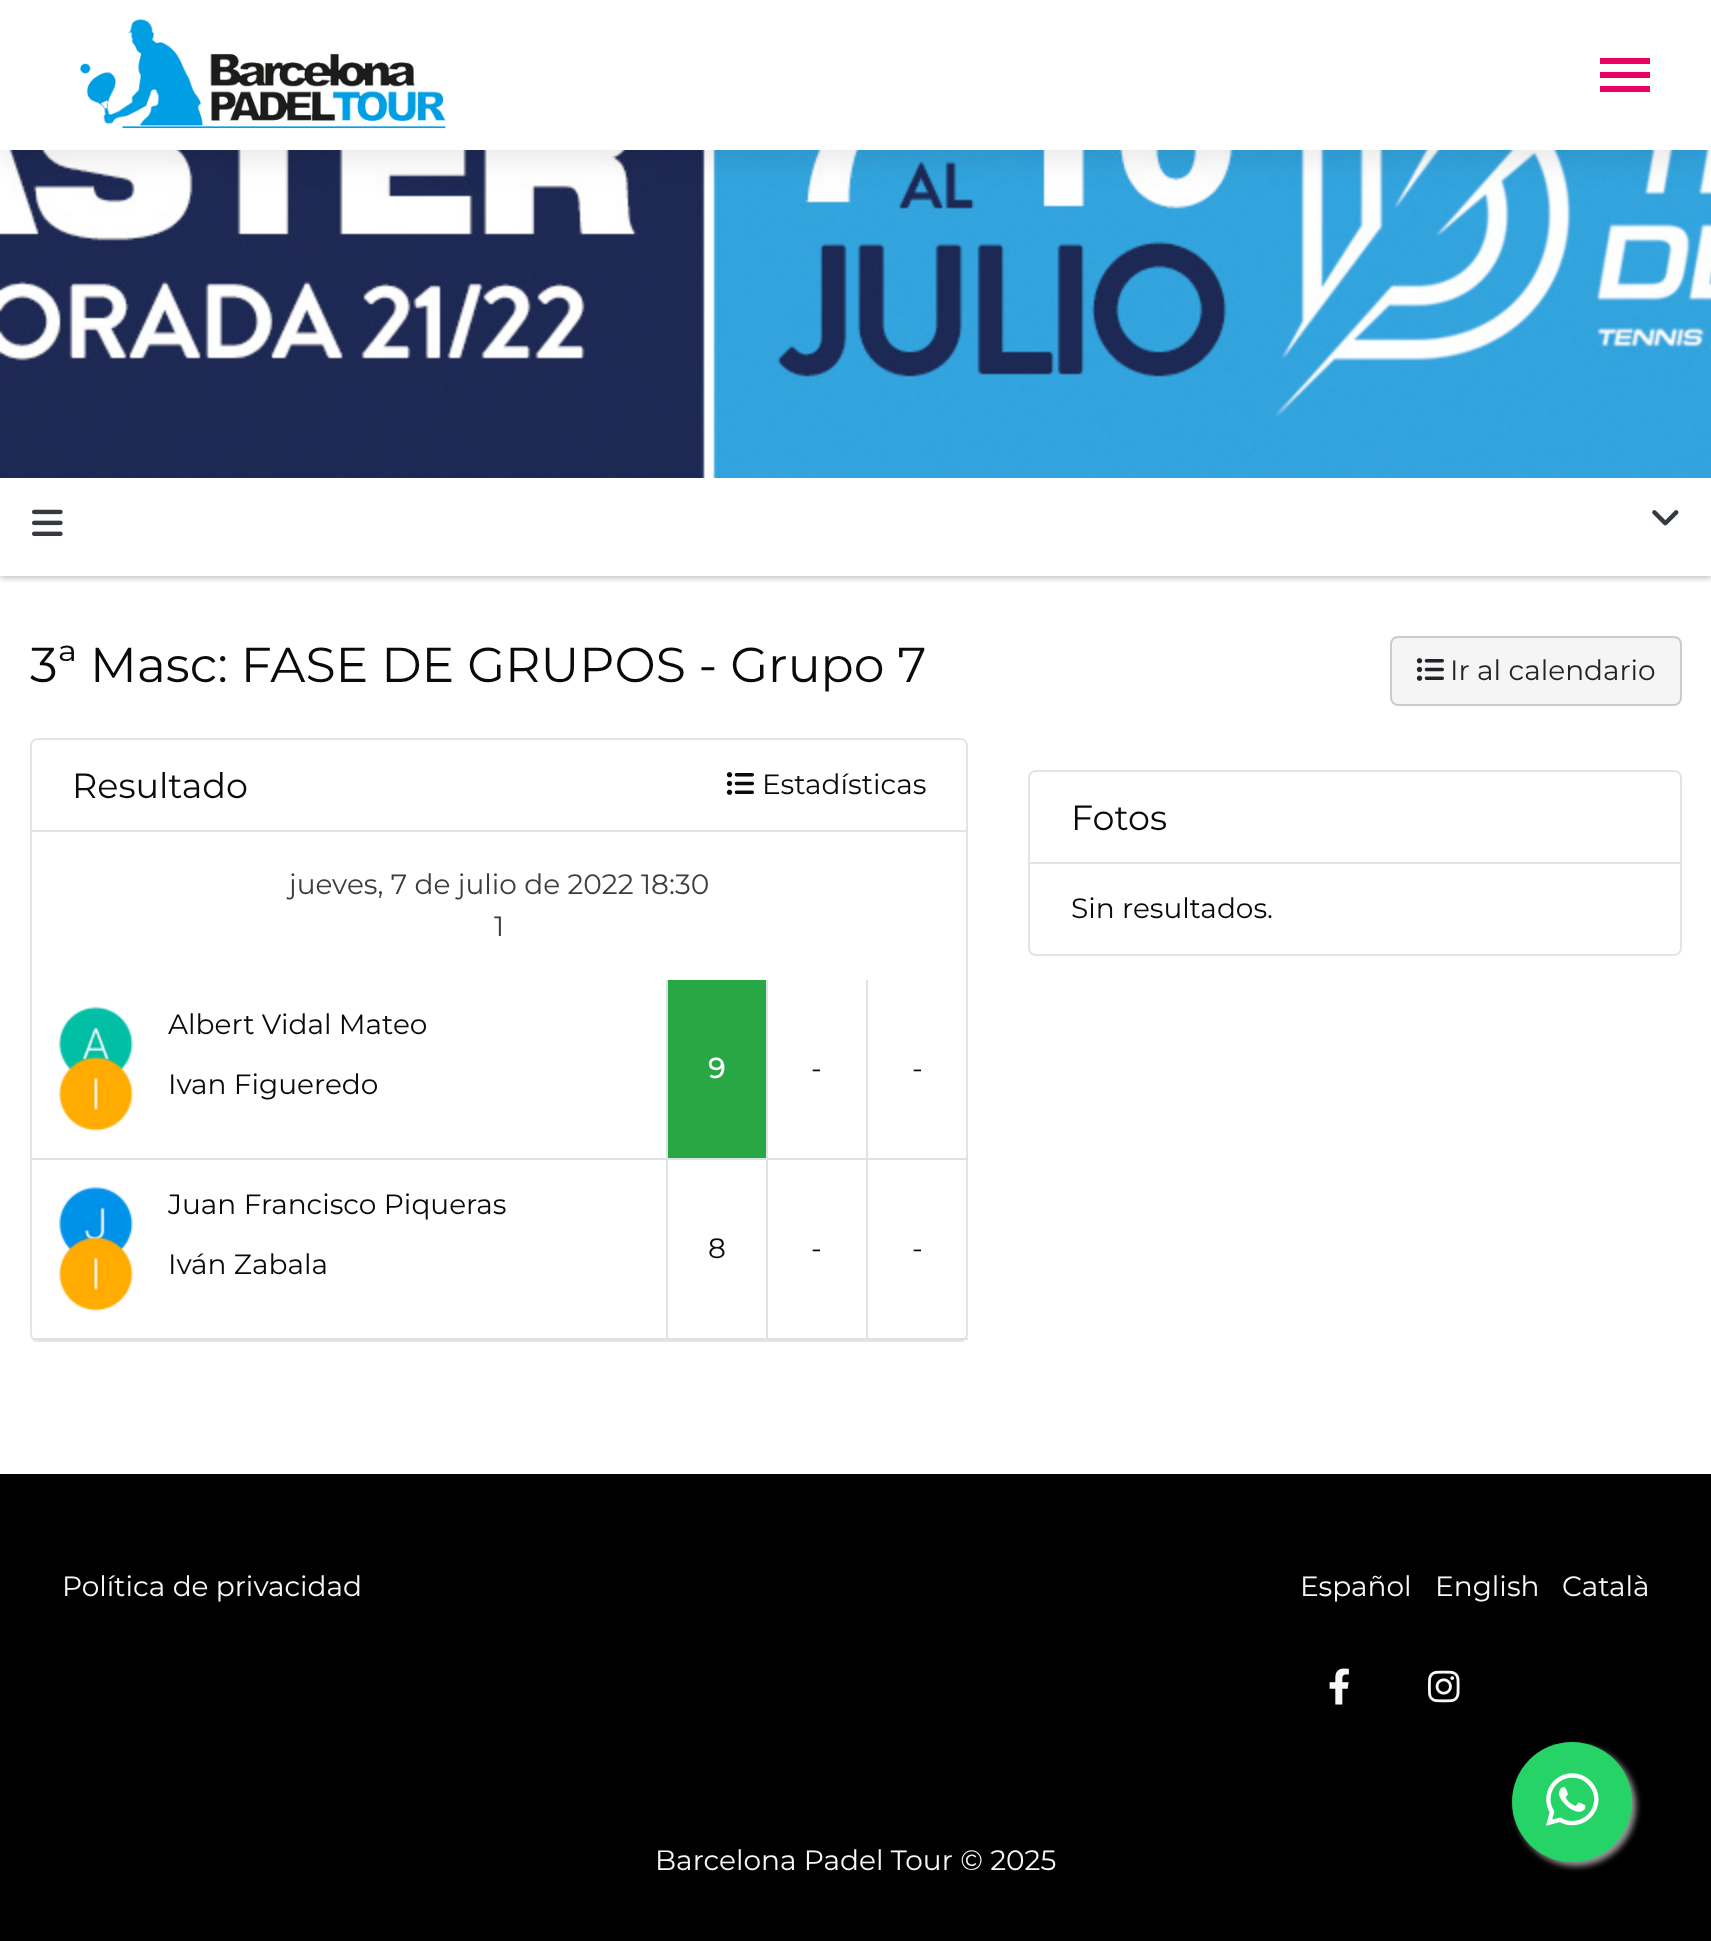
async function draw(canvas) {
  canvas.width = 1711
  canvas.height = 1941
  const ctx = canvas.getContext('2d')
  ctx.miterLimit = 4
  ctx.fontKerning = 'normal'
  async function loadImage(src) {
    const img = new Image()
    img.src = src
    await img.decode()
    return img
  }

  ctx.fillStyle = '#fff'
  ctx.fillRect(0, 0, 1711, 1941)
  ctx.save()
  ctx.beginPath()
  ctx.rect(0, 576, 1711, 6)
  ctx.clip()
  ctx.fillStyle = '#00000040'
  ctx.filter = 'blur(3px)'
  ctx.beginPath()
  ctx.rect(0, 472, 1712, 106)
  ctx.fill()
  ctx.filter = 'none'
  ctx.restore()
  ctx.drawImage(await loadImage('image1.png'), 0, 150, 1711, 328)
  ctx.fillStyle = '#0000001a'
  ctx.filter = 'blur(16px)'
  ctx.beginPath()
  ctx.rect(0, 6, 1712, 150)
  ctx.fill()
  ctx.filter = 'none'
  ctx.fillStyle = '#fff'
  ctx.fillRect(0, 0, 1711, 150)
  ctx.drawImage(await loadImage('image0.png'), 80, 19, 366, 110)
  ctx.fillStyle = '#eb0162'
  ctx.fillRect(1600, 58, 50, 6)
  ctx.fillRect(1600, 72, 50, 6)
  ctx.fillRect(1600, 86, 50, 6)
  ctx.drawImage(await loadImage('image2.png'), 32, 509, 31, 27)
  ctx.drawImage(await loadImage('image3.png'), 1652, 510, 27, 16)
  ctx.font = '100 49px Montserrat'
  ctx.fillStyle = '#0a0a0a'
  ctx.fillText('3ª Masc: FASE DE GRUPOS - Grupo 7', 30, 682)
  ctx.fillStyle = '#f5f5f5'
  ctx.beginPath()
  ctx.roundRect(1391, 637, 290, 68, 7)
  ctx.fill()
  ctx.strokeStyle = '#ccc'
  ctx.lineWidth = 2
  ctx.stroke()
  ctx.drawImage(await loadImage('image4.png'), 1416, 658, 28, 23)
  ctx.font = '100 28px Montserrat'
  ctx.fillStyle = '#212529'
  ctx.fillText('Ir al calendario', 1450, 680)
  ctx.beginPath()
  ctx.roundRect(31, 739, 936, 602, 7)
  ctx.strokeStyle = '#e4e4e4'
  ctx.stroke()
  ctx.fillStyle = '#fff'
  ctx.beginPath()
  ctx.roundRect(32, 740, 934, 92, [6, 6, 0, 0])
  ctx.fill()
  ctx.fillStyle = '#e4e4e4'
  ctx.fillRect(32, 830, 934, 2)
  ctx.font = '100 35px Montserrat'
  ctx.fillStyle = '#0a0a0a'
  ctx.fillText('Resultado', 72, 798)
  ctx.drawImage(await loadImage('image5.png'), 726, 772, 28, 23)
  ctx.font = '100 28px Montserrat'
  ctx.fillText('Estadísticas', 762, 794)
  ctx.fillStyle = '#3d3d3d'
  ctx.fillText('jueves, 7 de julio de 2022 18:30', 289, 894)
  ctx.fillText('1', 494, 936)
  ctx.fillStyle = '#dee2e6'
  ctx.fillRect(32, 1338, 936, 2)
  ctx.drawImage(await loadImage('image6.png'), 58, 1006, 75, 66)
  ctx.drawImage(await loadImage('image7.png'), 58, 1056, 75, 75)
  ctx.fillStyle = '#0a0a0a'
  ctx.fillText('Albert Vidal Mateo', 168, 1034)
  ctx.fillText('Ivan Figueredo', 168, 1094)
  ctx.fillStyle = '#28a745'
  ctx.fillRect(668, 980, 98, 178)
  ctx.fillStyle = '#dee2e6'
  ctx.fillRect(866, 1158, 102, 2)
  ctx.fillRect(866, 1158, 2, 182)
  ctx.fillRect(766, 1158, 102, 2)
  ctx.fillRect(766, 1158, 2, 182)
  ctx.fillRect(666, 1158, 102, 2)
  ctx.fillRect(666, 1158, 2, 182)
  ctx.fillRect(32, 1158, 636, 2)
  ctx.fillRect(666, 980, 2, 180)
  ctx.font = 'bold 28px Montserrat'
  ctx.fillStyle = '#fff'
  ctx.fillText('9', 708, 1078)
  ctx.fillStyle = '#dee2e6'
  ctx.fillRect(766, 980, 2, 180)
  ctx.font = '100 28px Montserrat'
  ctx.fillStyle = '#0a0a0a'
  ctx.fillText('-', 811, 1078)
  ctx.fillStyle = '#dee2e6'
  ctx.fillRect(866, 980, 2, 180)
  ctx.fillStyle = '#0a0a0a'
  ctx.fillText('-', 912, 1078)
  ctx.drawImage(await loadImage('image8.png'), 58, 1186, 75, 66)
  ctx.drawImage(await loadImage('image9.png'), 58, 1236, 75, 75)
  ctx.fillText('Juan Francisco Piqueras', 168, 1214)
  ctx.fillText('Iván Zabala', 168, 1274)
  ctx.fillText('8', 708, 1258)
  ctx.fillText('-', 811, 1258)
  ctx.fillText('-', 912, 1258)
  ctx.beginPath()
  ctx.roundRect(1029, 771, 652, 184, 7)
  ctx.stroke()
  ctx.fillStyle = '#fff'
  ctx.beginPath()
  ctx.roundRect(1030, 772, 650, 92, [6, 6, 0, 0])
  ctx.fill()
  ctx.fillStyle = '#e4e4e4'
  ctx.fillRect(1030, 862, 650, 2)
  ctx.font = '100 35px Montserrat'
  ctx.fillStyle = '#0a0a0a'
  ctx.fillText('Fotos', 1071, 830)
  ctx.font = '100 28px Montserrat'
  ctx.fillText('Sin resultados.', 1071, 918)
  ctx.fillStyle = '#000'
  ctx.fillRect(0, 1474, 1711, 467)
  ctx.fillStyle = '#f7f7f7'
  ctx.fillText('Política de privacidad', 62, 1596)
  ctx.fillText('Español', 1300, 1596)
  ctx.fillText('English', 1435, 1596)
  ctx.fillText('Català', 1562, 1596)
  ctx.drawImage(await loadImage('image10.png'), 1329, 1668, 20, 37)
  ctx.drawImage(await loadImage('image11.png'), 1428, 1670, 32, 33)
  ctx.fillText('Barcelona Padel Tour © 2025', 655, 1870)
  ctx.fillStyle = '#999'
  ctx.filter = 'blur(3px)'
  ctx.beginPath()
  ctx.roundRect(1516, 1746, 120, 120, 60)
  ctx.fill()
  ctx.filter = 'none'
  ctx.fillStyle = '#25d366'
  ctx.beginPath()
  ctx.arc(1572, 1802, 60, 0, 2 * Math.PI)
  ctx.fill()
  ctx.drawImage(await loadImage('image12.png'), 1546, 1773, 53, 53)
}

draw(document.querySelector('canvas'))
